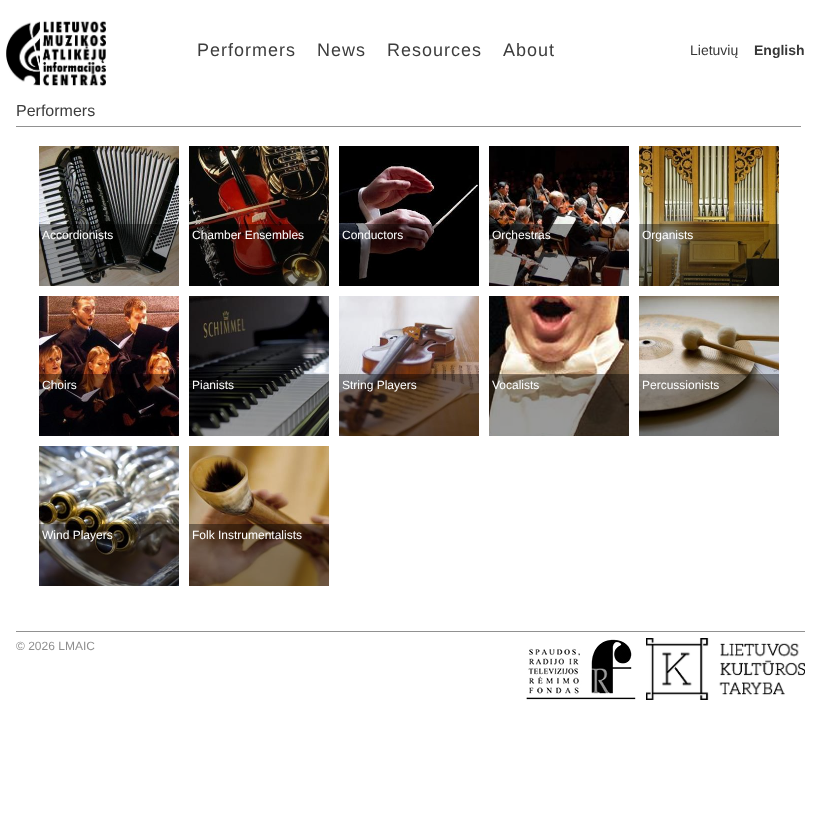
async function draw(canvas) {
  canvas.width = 817
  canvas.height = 824
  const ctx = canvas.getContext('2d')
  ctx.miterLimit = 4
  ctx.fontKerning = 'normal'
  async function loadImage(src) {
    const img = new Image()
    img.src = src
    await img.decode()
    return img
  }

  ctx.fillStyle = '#fff'
  ctx.fillRect(0, 0, 817, 824)
  ctx.drawImage(await loadImage('image0.png'), 6, 20, 100, 67)
  ctx.letterSpacing = '1px'
  ctx.font = '18px Liberation Sans'
  ctx.fillStyle = '#3d3d3d'
  ctx.fillText('Performers', 197, 56)
  ctx.fillText('News', 317, 56)
  ctx.fillText('Resources', 387, 56)
  ctx.fillText('About', 503, 56)
  ctx.letterSpacing = '0px'
  ctx.font = '14px Liberation Sans'
  ctx.fillStyle = '#373737'
  ctx.fillText('Lietuvių', 690, 55)
  ctx.font = 'bold 14px Liberation Sans'
  ctx.fillText('English', 754, 55)
  ctx.fillStyle = '#919191'
  ctx.fillRect(16, 126, 785, 1)
  ctx.font = '16px Liberation Sans'
  ctx.fillStyle = '#3d3d3d'
  ctx.fillText('Performers', 16, 116)
  ctx.drawImage(await loadImage('image1.png'), 39, 146, 140, 140)
  ctx.fillStyle = '#00000066'
  ctx.fillRect(39, 224, 140, 62)
  ctx.font = '12px Liberation Sans'
  ctx.fillStyle = '#fff'
  ctx.fillText('Accordionists', 42, 239)
  ctx.drawImage(await loadImage('image2.png'), 189, 146, 140, 140)
  ctx.fillStyle = '#00000066'
  ctx.fillRect(189, 224, 140, 62)
  ctx.fillStyle = '#fff'
  ctx.fillText('Chamber Ensembles', 192, 239)
  ctx.drawImage(await loadImage('image3.png'), 339, 146, 140, 140)
  ctx.fillStyle = '#00000066'
  ctx.fillRect(339, 224, 105, 56)
  ctx.fillStyle = '#fff'
  ctx.fillText('Conductors', 342, 239)
  ctx.drawImage(await loadImage('image4.png'), 489, 146, 140, 140)
  ctx.fillStyle = '#00000066'
  ctx.fillRect(489, 224, 140, 62)
  ctx.fillStyle = '#fff'
  ctx.fillText('Orchestras', 492, 239)
  ctx.drawImage(await loadImage('image5.png'), 639, 146, 140, 140)
  ctx.fillStyle = '#00000066'
  ctx.fillRect(639, 224, 140, 62)
  ctx.fillStyle = '#fff'
  ctx.fillText('Organists', 642, 239)
  ctx.drawImage(await loadImage('image6.png'), 39, 296, 140, 140)
  ctx.fillStyle = '#00000066'
  ctx.fillRect(39, 374, 140, 62)
  ctx.fillStyle = '#fff'
  ctx.fillText('Choirs', 42, 389)
  ctx.drawImage(await loadImage('image7.png'), 189, 296, 140, 140)
  ctx.fillStyle = '#00000066'
  ctx.fillRect(189, 374, 140, 62)
  ctx.fillStyle = '#fff'
  ctx.fillText('Pianists', 192, 389)
  ctx.drawImage(await loadImage('image8.png'), 339, 296, 140, 140)
  ctx.fillStyle = '#00000066'
  ctx.fillRect(339, 374, 140, 62)
  ctx.fillStyle = '#fff'
  ctx.fillText('String Players', 342, 389)
  ctx.drawImage(await loadImage('image9.png'), 489, 296, 140, 140)
  ctx.fillStyle = '#00000066'
  ctx.fillRect(489, 374, 140, 62)
  ctx.fillStyle = '#fff'
  ctx.fillText('Vocalists', 492, 389)
  ctx.drawImage(await loadImage('image10.png'), 639, 296, 140, 140)
  ctx.fillStyle = '#00000066'
  ctx.fillRect(639, 374, 140, 62)
  ctx.fillStyle = '#fff'
  ctx.fillText('Percussionists', 642, 389)
  ctx.drawImage(await loadImage('image11.png'), 39, 446, 140, 140)
  ctx.fillStyle = '#00000066'
  ctx.fillRect(39, 524, 140, 62)
  ctx.fillStyle = '#fff'
  ctx.fillText('Wind Players', 42, 539)
  ctx.drawImage(await loadImage('image12.png'), 189, 446, 140, 140)
  ctx.fillStyle = '#00000066'
  ctx.fillRect(189, 524, 140, 62)
  ctx.fillStyle = '#fff'
  ctx.fillText('Folk Instrumentalists', 192, 539)
  ctx.fillStyle = '#919191'
  ctx.fillRect(16, 631, 789, 1)
  ctx.fillStyle = '#8f8f8f'
  ctx.fillText('© 2026 LMAIC', 16, 650)
  ctx.drawImage(await loadImage('image13.png'), 526, 639, 110, 61)
  ctx.drawImage(await loadImage('image14.png'), 646, 638, 159, 62)
}

draw(document.querySelector('canvas'))
